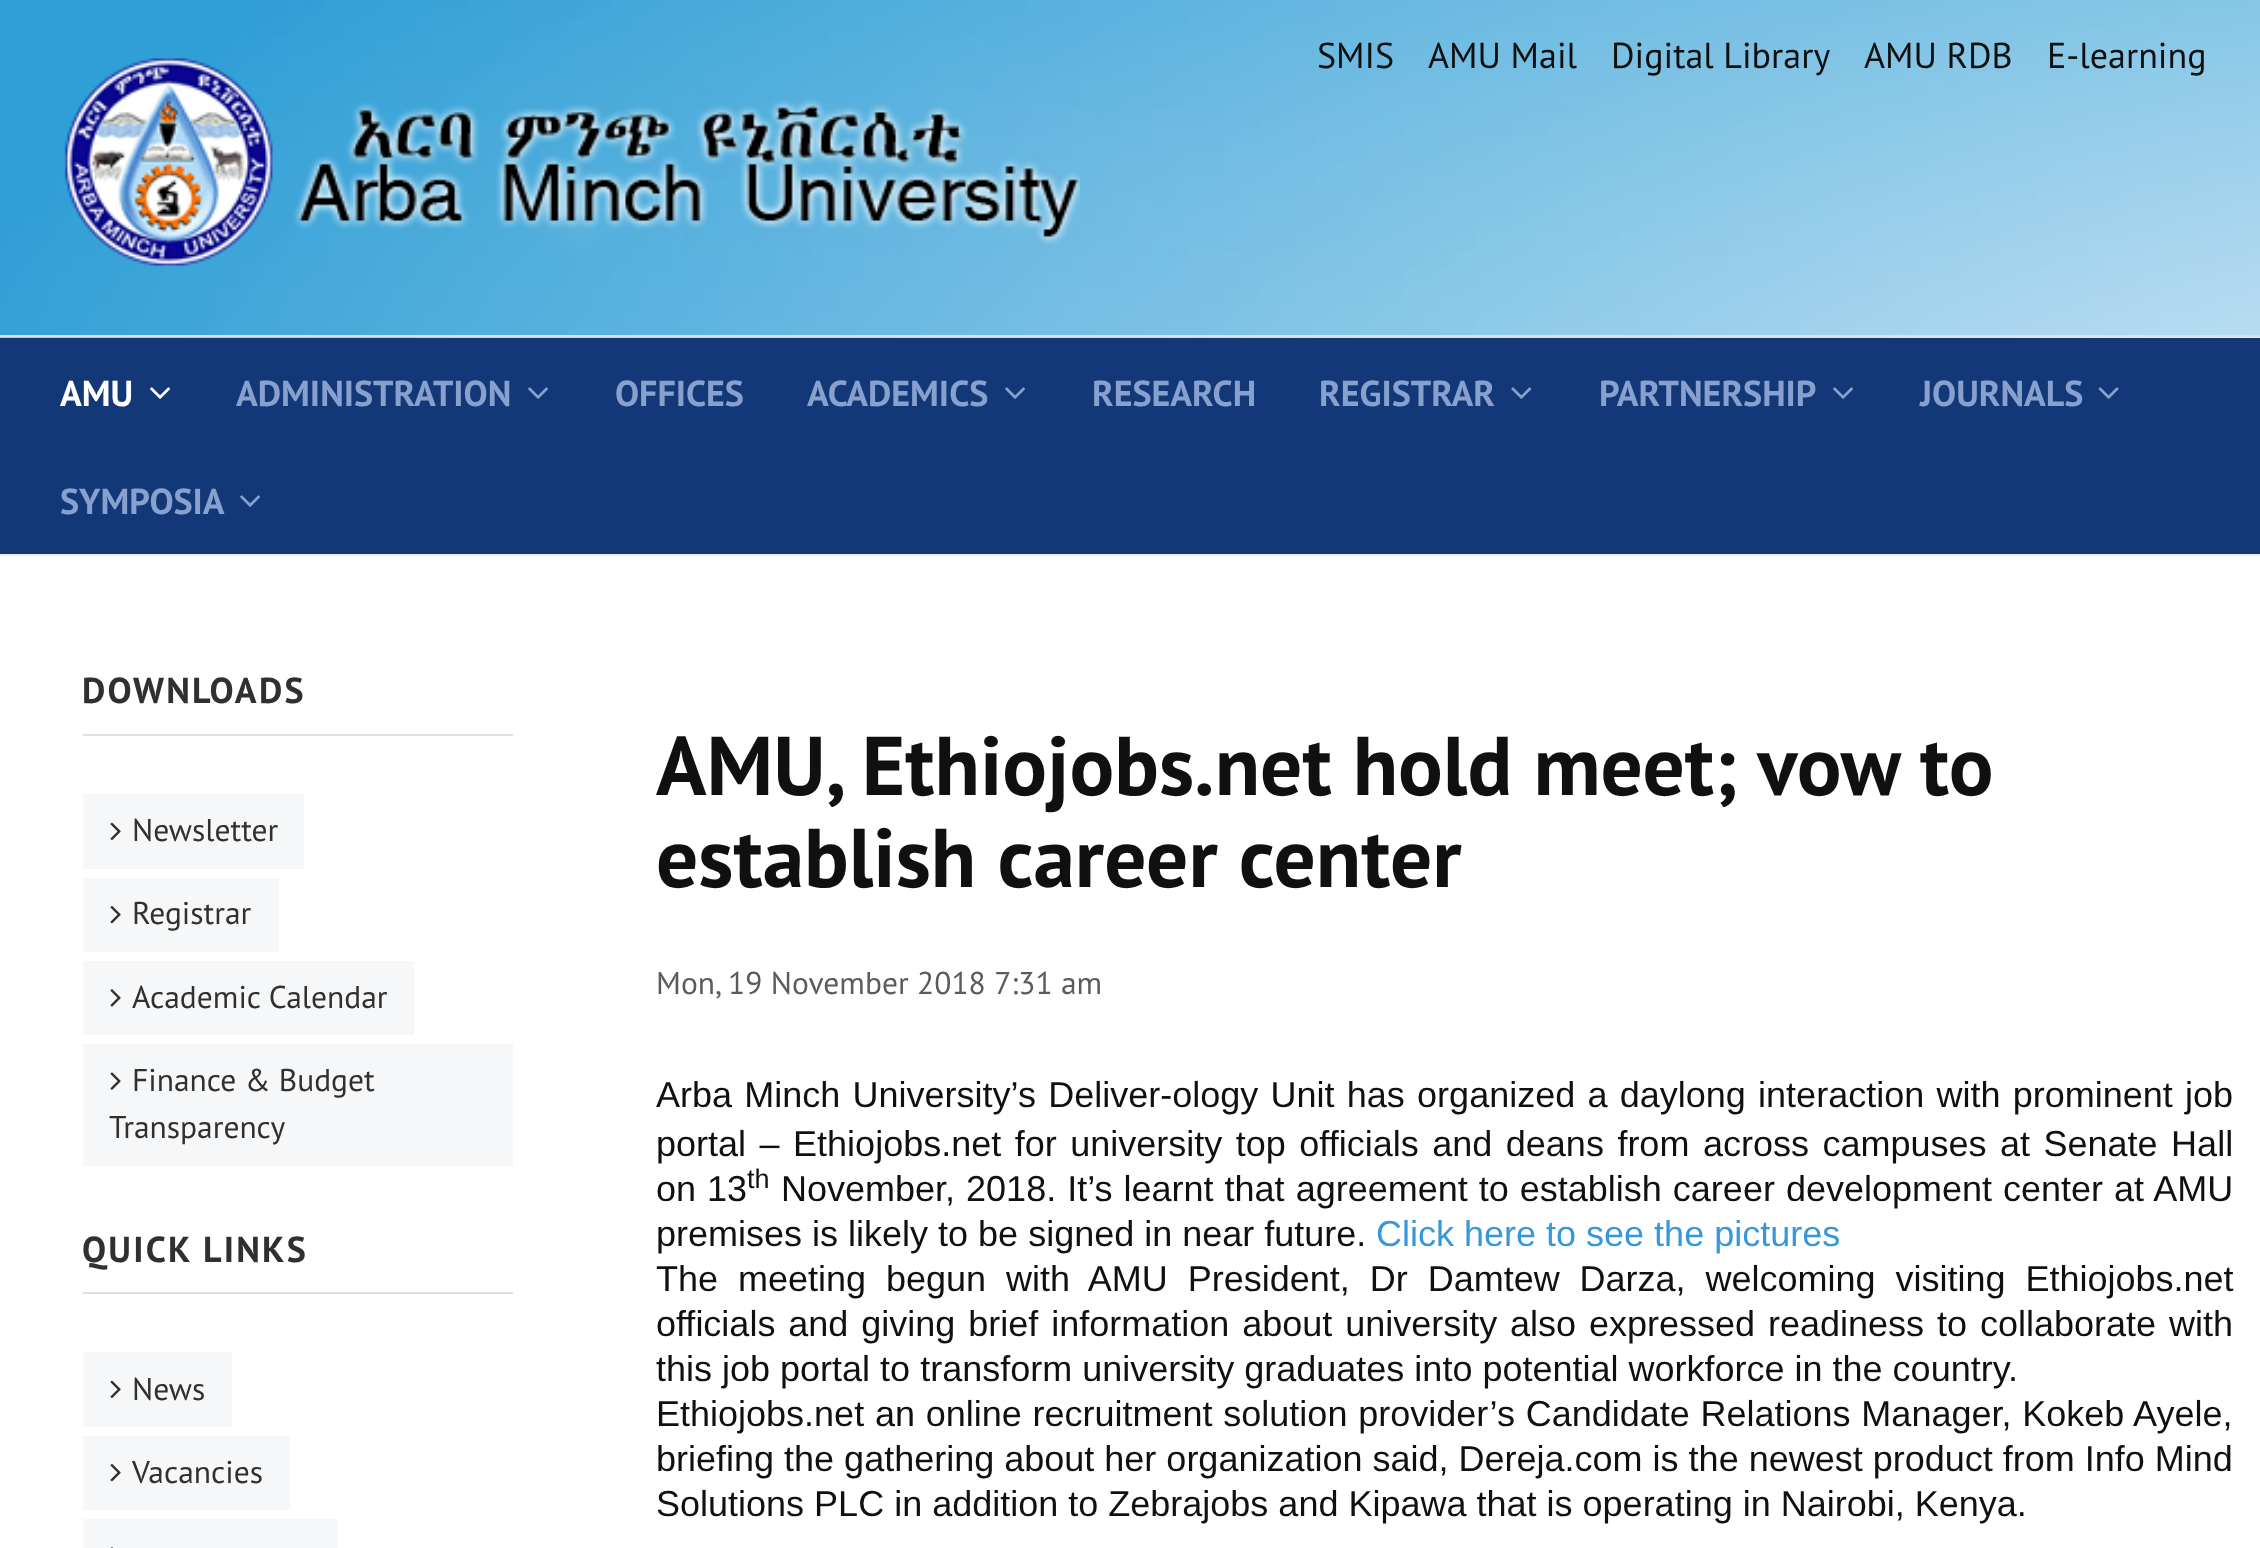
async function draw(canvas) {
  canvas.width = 2260
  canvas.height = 1548
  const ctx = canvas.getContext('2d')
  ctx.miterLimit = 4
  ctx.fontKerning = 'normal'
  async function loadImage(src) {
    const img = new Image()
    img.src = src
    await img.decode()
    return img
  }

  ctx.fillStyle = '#fff'
  ctx.fillRect(0, 0, 2260, 1548)
  ctx.drawImage(await loadImage('image0.png'), 0, 0, 2260, 338)
  ctx.fillStyle = '#e0e0e0'
  ctx.fillRect(0, 335, 2260, 2)
  ctx.drawImage(await loadImage('image1.png'), 64, 58, 1016, 209)
  ctx.font = '36px PT Sans'
  ctx.fillStyle = '#101010'
  ctx.fillText('SMIS', 1317, 68)
  ctx.fillText('AMU Mail', 1428, 68)
  ctx.fillText('Digital Library', 1611, 68)
  ctx.fillText('AMU RDB', 1864, 68)
  ctx.fillText('E-learning', 2047, 68)
  ctx.fillStyle = '#133877'
  ctx.fillRect(0, 338, 2260, 216)
  ctx.fillStyle = '#eee'
  ctx.fillRect(0, 554, 2260, 2)
  ctx.font = 'bold 36px PT Sans'
  ctx.fillStyle = '#fff'
  ctx.fillText('AMU', 60, 406)
  ctx.drawImage(await loadImage('image2.png'), 150, 387, 20, 12)
  ctx.fillStyle = '#87a0ce'
  ctx.fillText('ADMINISTRATION', 236, 406)
  ctx.drawImage(await loadImage('image3.png'), 528, 387, 20, 12)
  ctx.fillText('OFFICES', 615, 406)
  ctx.fillText('ACADEMICS', 807, 406)
  ctx.drawImage(await loadImage('image3.png'), 1005, 387, 20, 12)
  ctx.fillText('RESEARCH', 1092, 406)
  ctx.fillText('REGISTRAR', 1319, 406)
  ctx.drawImage(await loadImage('image4.png'), 1511, 387, 21, 12)
  ctx.fillText('PARTNERSHIP', 1599, 406)
  ctx.drawImage(await loadImage('image3.png'), 1833, 387, 20, 12)
  ctx.fillText('JOURNALS', 1920, 406)
  ctx.drawImage(await loadImage('image5.png'), 2098, 387, 21, 12)
  ctx.fillText('SYMPOSIA', 60, 514)
  ctx.drawImage(await loadImage('image3.png'), 240, 495, 20, 12)
  ctx.fillStyle = '#e0e0e0'
  ctx.fillRect(83, 734, 430, 2)
  ctx.letterSpacing = '2.25px'
  ctx.fillStyle = '#303030'
  ctx.fillText('DOWNLOADS', 82, 703)
  ctx.fillStyle = '#f6f7f8'
  ctx.fillRect(83, 794, 221, 75)
  ctx.drawImage(await loadImage('image6.png'), 110, 822, 11, 19)
  ctx.letterSpacing = '0px'
  ctx.font = '31.5px PT Sans'
  ctx.fillStyle = '#303030'
  ctx.fillText('Newsletter', 132, 841)
  ctx.fillStyle = '#f6f7f8'
  ctx.fillRect(83, 878, 196, 74)
  ctx.drawImage(await loadImage('image7.png'), 110, 905, 11, 19)
  ctx.fillStyle = '#303030'
  ctx.fillText('Registrar', 132, 924)
  ctx.fillStyle = '#f6f7f8'
  ctx.fillRect(83, 961, 331, 74)
  ctx.drawImage(await loadImage('image8.png'), 110, 989, 11, 18)
  ctx.fillStyle = '#303030'
  ctx.fillText('Academic Calendar', 132, 1008)
  ctx.fillStyle = '#f6f7f8'
  ctx.fillRect(83, 1044, 430, 122)
  ctx.drawImage(await loadImage('image9.png'), 110, 1072, 11, 18)
  ctx.fillStyle = '#303030'
  ctx.fillText('Finance & Budget', 132, 1091)
  ctx.fillText('Transparency', 109, 1138)
  ctx.fillStyle = '#e0e0e0'
  ctx.fillRect(83, 1292, 430, 2)
  ctx.letterSpacing = '2.25px'
  ctx.font = 'bold 36px PT Sans'
  ctx.fillStyle = '#303030'
  ctx.fillText('QUICK LINKS', 82, 1262)
  ctx.fillStyle = '#f6f7f8'
  ctx.fillRect(83, 1352, 149, 75)
  ctx.drawImage(await loadImage('image6.png'), 110, 1380, 11, 19)
  ctx.letterSpacing = '0px'
  ctx.font = '31.5px PT Sans'
  ctx.fillStyle = '#303030'
  ctx.fillText('News', 132, 1400)
  ctx.fillStyle = '#f6f7f8'
  ctx.fillRect(83, 1436, 207, 74)
  ctx.drawImage(await loadImage('image7.png'), 110, 1463, 11, 19)
  ctx.fillStyle = '#303030'
  ctx.fillText('Vacancies', 132, 1483)
  ctx.fillStyle = '#f6f7f8'
  ctx.fillRect(83, 1519, 255, 29)
  ctx.drawImage(await loadImage('image10.png'), 111, 1547, 2, 1)
  ctx.font = 'bold 83.4px PT Sans'
  ctx.fillStyle = '#101010'
  ctx.fillText('AMU, Ethiojobs.net hold meet; vow to', 656, 795)
  ctx.fillText('establish career center', 656, 887)
  ctx.font = '31.5px PT Sans'
  ctx.fillStyle = '#595c5f'
  ctx.fillText('Mon, 19 November 2018 7:31 am', 656, 994)
  ctx.wordSpacing = '2.25px'
  ctx.font = '36px Liberation Sans'
  ctx.fillStyle = '#101010'
  ctx.fillText('Arba Minch University’s Deliver-ology Unit has organized a daylong interaction with prominent job', 656, 1107)
  ctx.wordSpacing = '3.5px'
  ctx.fillText('portal – Ethiojobs.net for university top officials and deans from across campuses at Senate Hall', 656, 1156)
  ctx.wordSpacing = '1px'
  ctx.fillText('on 13', 656, 1201)
  ctx.wordSpacing = '0px'
  ctx.font = '27px Liberation Sans'
  ctx.fillText('th', 747, 1188)
  ctx.wordSpacing = '1px'
  ctx.font = '36px Liberation Sans'
  ctx.fillText('November, 2018. It’s learnt that agreement to establish career development center at AMU', 781, 1201)
  ctx.wordSpacing = '0px'
  ctx.fillText('premises is likely to be signed in near future.', 656, 1246)
  ctx.fillStyle = '#3498db'
  ctx.fillText('Click here to see the pictures', 1376, 1246)
  ctx.wordSpacing = '9.9px'
  ctx.fillStyle = '#101010'
  ctx.fillText('The meeting begun with AMU President, Dr Damtew Darza, welcoming visiting Ethiojobs.net', 656, 1291)
  ctx.wordSpacing = '2.9px'
  ctx.fillText('officials and giving brief information about university also expressed readiness to collaborate with', 656, 1336)
  ctx.wordSpacing = '0px'
  ctx.fillText('this job portal to transform university graduates into potential workforce in the country.', 656, 1381)
  ctx.wordSpacing = '0.75px'
  ctx.fillText('Ethiojobs.net an online recruitment solution provider’s Candidate Relations Manager, Kokeb Ayele,', 656, 1426)
  ctx.wordSpacing = '0px'
  ctx.fillText('briefing the gathering about her organization said, Dereja.com is the newest product from Info Mind', 656, 1471)
  ctx.fillText('Solutions PLC in addition to Zebrajobs and Kipawa that is operating in Nairobi, Kenya.', 656, 1516)
}

draw(document.querySelector('canvas'))
